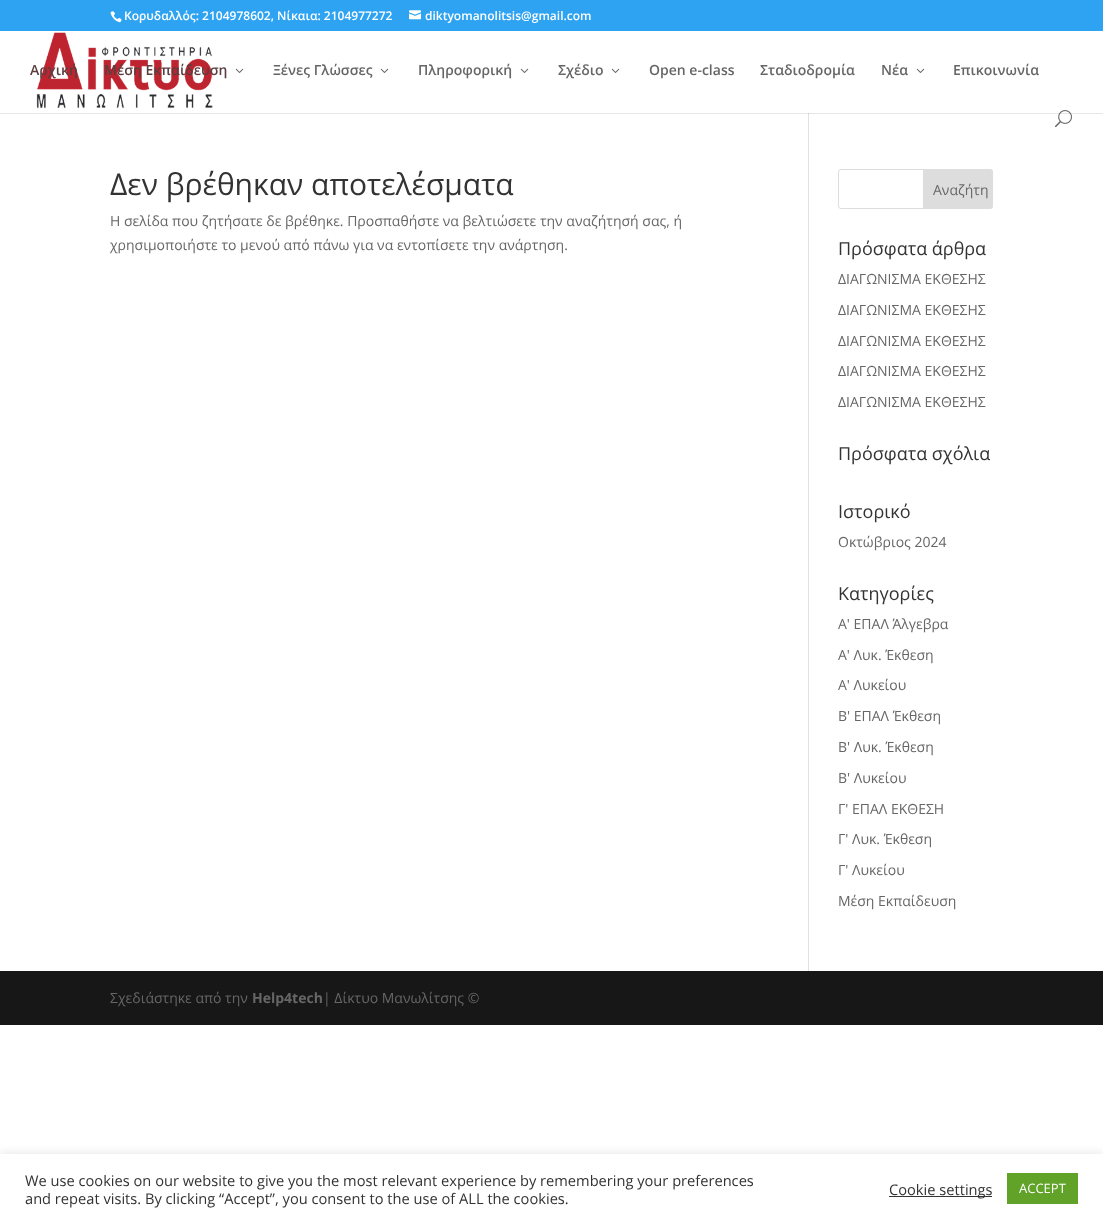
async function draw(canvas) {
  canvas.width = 1103
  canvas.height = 1223
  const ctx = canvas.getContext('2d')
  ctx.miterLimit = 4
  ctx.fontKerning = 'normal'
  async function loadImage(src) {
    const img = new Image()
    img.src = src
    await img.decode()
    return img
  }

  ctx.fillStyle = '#fff'
  ctx.fillRect(0, 0, 1103, 1223)
  ctx.fillStyle = '#e6e6e6'
  ctx.fillRect(0, 113, 1103, 1)
  ctx.fillStyle = '#2ea3f2'
  ctx.fillRect(0, 0, 1103, 31)
  ctx.drawImage(await loadImage('image0.png'), 110, 11, 12, 12)
  ctx.font = '600 12px Open Sans'
  ctx.fillStyle = '#fff'
  ctx.fillText('Κορυδαλλός: 2104978602, Νίκαια: 2104977272', 124, 20)
  ctx.drawImage(await loadImage('image1.png'), 409, 10, 12, 10)
  ctx.fillText('diktyomanolitsis@gmail.com', 425, 20)
  ctx.fillStyle = '#e2e2e2'
  ctx.fillRect(808, 111, 1, 860)
  ctx.fillStyle = '#fff'
  ctx.fillRect(808, 111, 1, 2)
  ctx.drawImage(await loadImage('image2.png'), 36, 32, 177, 77)
  ctx.font = '600 14px Open Sans'
  ctx.fillStyle = '#5a3e40'
  ctx.fillText('Αρχική', 30, 75)
  ctx.fillText('Μέση Εκπαίδευση', 104, 75)
  ctx.drawImage(await loadImage('image3.png'), 235, 68, 9, 5)
  ctx.fillStyle = '#666'
  ctx.fillText('Ξένες Γλώσσες', 273, 75)
  ctx.drawImage(await loadImage('image3.png'), 380, 68, 9, 5)
  ctx.fillText('Πληροφορική', 418, 75)
  ctx.drawImage(await loadImage('image3.png'), 520, 68, 9, 5)
  ctx.fillText('Σχέδιο', 558, 75)
  ctx.drawImage(await loadImage('image3.png'), 611, 68, 9, 5)
  ctx.fillText('Open e-class', 649, 75)
  ctx.fillText('Σταδιοδρομία', 760, 75)
  ctx.fillText('Νέα', 881, 75)
  ctx.drawImage(await loadImage('image3.png'), 916, 68, 9, 5)
  ctx.fillText('Επικοινωνία', 953, 75)
  ctx.drawImage(await loadImage('image4.png'), 1055, 110, 17, 18)
  ctx.fillStyle = '#cbcbcb'
  ctx.fillRect(808, 113, 1, 1)
  ctx.font = '30px Open Sans'
  ctx.fillStyle = '#333'
  ctx.fillText('Δεν βρέθηκαν αποτελέσματα', 110, 195)
  ctx.font = '14px Open Sans'
  ctx.fillStyle = '#666'
  ctx.fillText('Η σελίδα που ζητήσατε δε βρέθηκε. Προσπαθήστε να βελτιώσετε την αναζήτησή σας, ή', 110, 226)
  ctx.fillText('χρησιμοποιήστε το μενού από πάνω για να εντοπίσετε την ανάρτηση.', 110, 250)
  ctx.beginPath()
  ctx.roundRect(838.5, 169.5, 154, 39, 2.5)
  ctx.strokeStyle = '#ddd'
  ctx.stroke()
  ctx.fillStyle = '#ddd'
  ctx.beginPath()
  ctx.roundRect(923.5, 169.5, 69, 39, [0, 2.5, 2.5, 0])
  ctx.fill()
  ctx.stroke()
  ctx.fillStyle = '#666'
  ctx.fillText('Αναζήτη', 933, 195)
  ctx.font = '18px Open Sans'
  ctx.fillStyle = '#333'
  ctx.fillText('Πρόσφατα άρθρα', 838, 255)
  ctx.font = '14px Open Sans'
  ctx.fillStyle = '#666'
  ctx.fillText('ΔΙΑΓΩΝΙΣΜΑ ΕΚΘΕΣΗΣ', 838, 284)
  ctx.fillText('ΔΙΑΓΩΝΙΣΜΑ ΕΚΘΕΣΗΣ', 838, 315)
  ctx.fillText('ΔΙΑΓΩΝΙΣΜΑ ΕΚΘΕΣΗΣ', 838, 346)
  ctx.fillText('ΔΙΑΓΩΝΙΣΜΑ ΕΚΘΕΣΗΣ', 838, 376)
  ctx.fillText('ΔΙΑΓΩΝΙΣΜΑ ΕΚΘΕΣΗΣ', 838, 407)
  ctx.font = '18px Open Sans'
  ctx.fillStyle = '#333'
  ctx.fillText('Πρόσφατα σχόλια', 838, 460)
  ctx.fillText('Ιστορικό', 838, 518)
  ctx.font = '14px Open Sans'
  ctx.fillStyle = '#666'
  ctx.fillText('Οκτώβριος 2024', 838, 547)
  ctx.font = '18px Open Sans'
  ctx.fillStyle = '#333'
  ctx.fillText('Kατηγορίες', 838, 600)
  ctx.font = '14px Open Sans'
  ctx.fillStyle = '#666'
  ctx.fillText('Α\' ΕΠΑΛ Άλγεβρα', 838, 629)
  ctx.fillText('Α\' Λυκ. Έκθεση', 838, 660)
  ctx.fillText('Α\' Λυκείου', 838, 690)
  ctx.fillText('Β\' ΕΠΑΛ Έκθεση', 838, 721)
  ctx.fillText('Β\' Λυκ. Έκθεση', 838, 752)
  ctx.fillText('Β\' Λυκείου', 838, 783)
  ctx.fillText('Γ\' ΕΠΑΛ ΕΚΘΕΣΗ', 838, 814)
  ctx.fillText('Γ\' Λυκ. Έκθεση', 838, 844)
  ctx.fillText('Γ\' Λυκείου', 838, 875)
  ctx.fillText('Μέση Εκπαίδευση', 838, 906)
  ctx.fillStyle = '#171717'
  ctx.fillRect(0, 971, 1103, 54)
  ctx.fillStyle = '#666'
  ctx.fillText('Σχεδιάστηκε από την', 110, 1003)
  ctx.font = 'bold 14px Open Sans'
  ctx.fillText('Help4tech', 252, 1003)
  ctx.font = '14px Open Sans'
  ctx.fillText('| Δίκτυο Μανωλίτσης ©', 323, 1003)
  ctx.save()
  ctx.beginPath()
  ctx.rect(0, 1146, 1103, 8)
  ctx.clip()
  ctx.fillStyle = '#acabab4d'
  ctx.filter = 'blur(5px)'
  ctx.beginPath()
  ctx.rect(0, 1153, 1103, 69)
  ctx.fill()
  ctx.filter = 'none'
  ctx.restore()
  ctx.font = '14.65px Open Sans'
  ctx.fillStyle = '#333'
  ctx.fillText('We use cookies on our website to give you the most relevant experience by remembering your preferences', 25, 1186)
  ctx.fillText('and repeat visits. By clicking “Accept”, you consent to the use of ALL the cookies.', 25, 1204)
  ctx.fillRect(889, 1196, 103, 1)
  ctx.fillText('Cookie settings', 889, 1195)
  ctx.fillStyle = '#61a229'
  ctx.fillRect(1007, 1173, 71, 31)
  ctx.font = '13px Open Sans'
  ctx.fillStyle = '#fff'
  ctx.fillText('ACCEPT', 1019, 1193)
}

draw(document.querySelector('canvas'))
